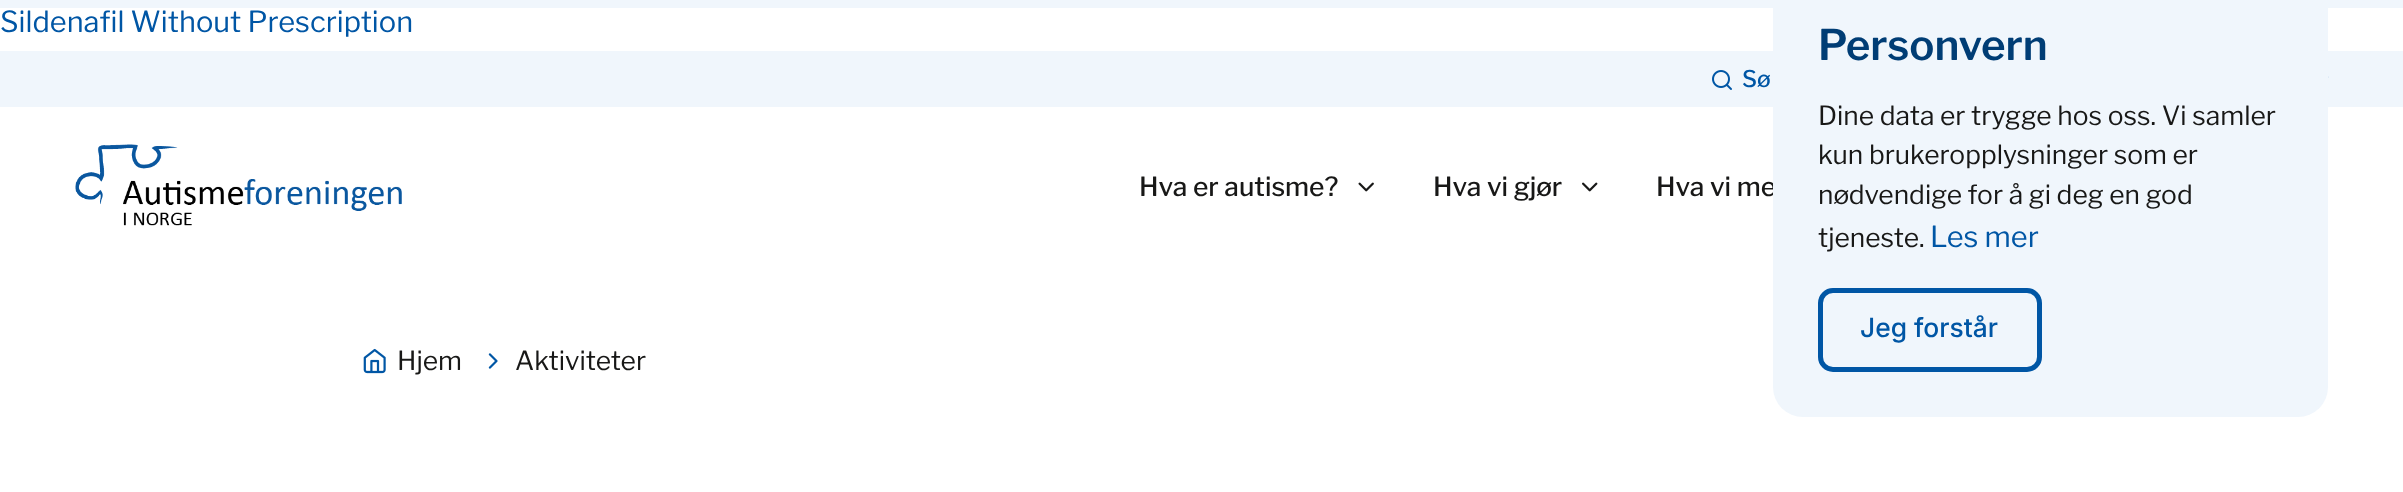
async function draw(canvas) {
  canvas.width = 2403
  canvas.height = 492
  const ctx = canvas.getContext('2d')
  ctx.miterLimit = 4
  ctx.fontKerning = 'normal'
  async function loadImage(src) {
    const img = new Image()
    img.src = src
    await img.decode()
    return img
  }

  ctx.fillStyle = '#fff'
  ctx.fillRect(0, 0, 2403, 492)
  ctx.font = '29px Libre Franklin'
  ctx.fillStyle = '#0056a5'
  ctx.fillText('Sildenafil Without Prescription', 0, 32)
  ctx.fillStyle = '#f0f6fc'
  ctx.fillRect(0, 0, 2403, 8)
  ctx.fillRect(0, 51, 2403, 56)
  ctx.drawImage(await loadImage('image0.png'), 1712, 70, 20, 20)
  ctx.font = '500 23px Libre Franklin'
  ctx.fillStyle = '#0056a5'
  ctx.fillText('Sø', 1742, 87)
  ctx.drawImage(await loadImage('image1.png'), 2328, 76, 1, 2)
  ctx.drawImage(await loadImage('image2.png'), 75, 144, 327, 82)
  ctx.font = '500 26.4px Libre Franklin'
  ctx.fillStyle = '#181817'
  ctx.fillText('Hva er autisme?', 1139, 196)
  ctx.drawImage(await loadImage('image3.png'), 1358, 182, 16, 10)
  ctx.fillText('Hva vi gjør', 1433, 196)
  ctx.drawImage(await loadImage('image4.png'), 1582, 182, 16, 10)
  ctx.fillText('Hva vi me', 1656, 196)
  ctx.fillStyle = '#f0f6fc'
  ctx.beginPath()
  ctx.roundRect(1773, -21, 555, 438, 30)
  ctx.fill()
  ctx.font = '600 42px Libre Franklin'
  ctx.fillStyle = '#003d75'
  ctx.fillText('Personvern', 1818, 60)
  ctx.font = '26.4px Libre Franklin'
  ctx.fillStyle = '#181817'
  ctx.fillText('Dine data er trygge hos oss. Vi samler', 1818, 125)
  ctx.fillText('kun brukeropplysninger som er', 1818, 164)
  ctx.fillText('nødvendige for å gi deg en god', 1818, 204)
  ctx.fillText('tjeneste.', 1818, 247)
  ctx.font = '29px Libre Franklin'
  ctx.fillStyle = '#0056a5'
  ctx.fillText('Les mer', 1930, 247)
  ctx.beginPath()
  ctx.roundRect(1820.5, 290.5, 219, 79, 12.5)
  ctx.strokeStyle = '#0056a5'
  ctx.lineWidth = 5
  ctx.stroke()
  ctx.font = '500 26.4px Inter'
  ctx.fillText('Jeg forstår', 1860, 337)
  ctx.drawImage(await loadImage('image5.png'), 363, 348, 23, 26)
  ctx.font = '26.4px Libre Franklin'
  ctx.fillStyle = '#181817'
  ctx.fillText('Hjem', 397, 370)
  ctx.drawImage(await loadImage('image6.png'), 488, 353, 10, 16)
  ctx.fillText('Aktiviteter', 515, 370)
}

draw(document.querySelector('canvas'))
